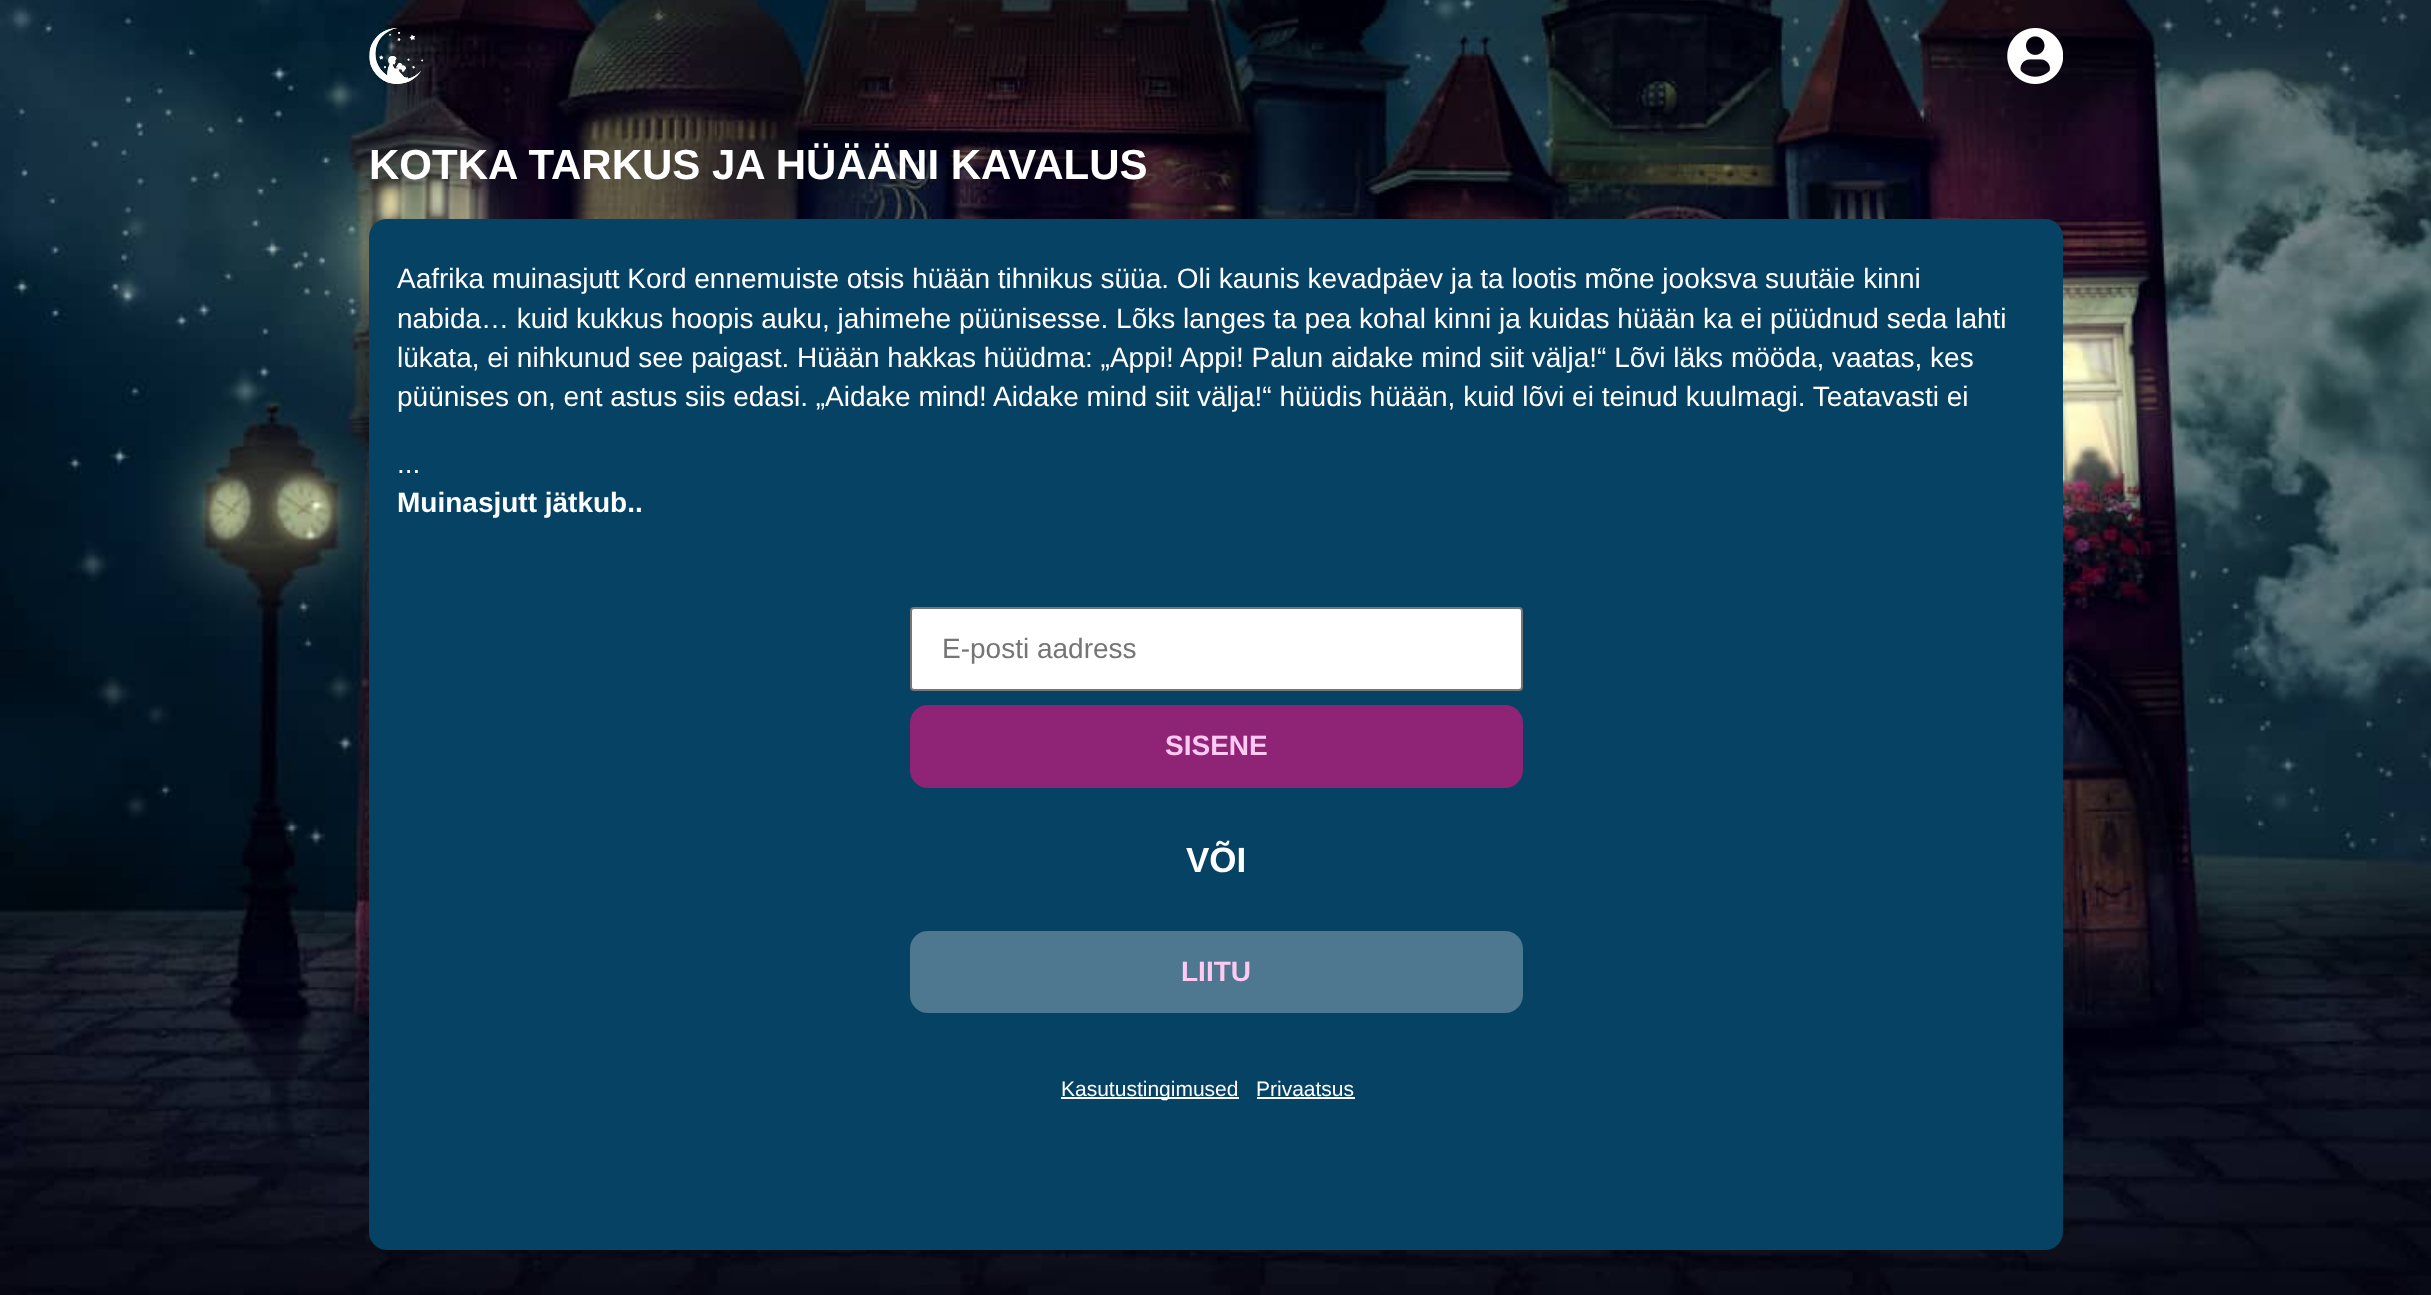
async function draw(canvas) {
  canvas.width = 2431
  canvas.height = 1295
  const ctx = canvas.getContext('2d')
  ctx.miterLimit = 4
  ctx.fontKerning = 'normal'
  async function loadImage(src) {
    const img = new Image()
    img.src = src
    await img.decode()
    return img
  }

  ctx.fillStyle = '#fff'
  ctx.fillRect(0, 0, 2431, 1295)
  ctx.drawImage(await loadImage('image0.png'), 0, 0, 2431, 1295)
  ctx.drawImage(await loadImage('image1.png'), 369, 28, 55, 56)
  ctx.drawImage(await loadImage('image2.png'), 2007, 28, 56, 56)
  ctx.font = 'bold 42px Liberation Sans'
  ctx.fillText('KOTKA TARKUS JA HÜÄÄNI KAVALUS', 369, 179)
  ctx.fillStyle = '#064264'
  ctx.beginPath()
  ctx.roundRect(369, 219, 1694, 1031, 18)
  ctx.fill()
  ctx.font = '28px Liberation Sans'
  ctx.fillStyle = '#fff'
  ctx.fillText('Aafrika muinasjutt Kord ennemuiste otsis hüään tihnikus süüa. Oli kaunis kevadpäev ja ta lootis mõne jooksva suutäie kinni', 397, 288)
  ctx.fillText('nabida… kuid kukkus hoopis auku, jahimehe püünisesse. Lõks langes ta pea kohal kinni ja kuidas hüään ka ei püüdnud seda lahti', 397, 328)
  ctx.fillText('lükata, ei nihkunud see paigast. Hüään hakkas hüüdma: „Appi! Appi! Palun aidake mind siit välja!“ Lõvi läks mööda, vaatas, kes', 397, 367)
  ctx.fillText('püünises on, ent astus siis edasi. „Aidake mind! Aidake mind siit välja!“ hüüdis hüään, kuid lõvi ei teinud kuulmagi. Teatavasti ei', 397, 406)
  ctx.fillText('...', 397, 473)
  ctx.font = 'bold 28px Liberation Sans'
  ctx.fillText('Muinasjutt jätkub..', 397, 512)
  ctx.beginPath()
  ctx.roundRect(911, 608, 611, 82, 3)
  ctx.fill()
  ctx.strokeStyle = '#767676'
  ctx.lineWidth = 2
  ctx.stroke()
  ctx.font = '28px Liberation Sans'
  ctx.fillStyle = '#757575'
  ctx.fillText('E-posti aadress', 942, 658)
  ctx.fillStyle = '#8f2375'
  ctx.beginPath()
  ctx.roundRect(910, 705, 613, 83, 18)
  ctx.fill()
  ctx.font = 'bold 28px Liberation Sans'
  ctx.fillStyle = '#ffcaf2'
  ctx.fillText('SISENE', 1165, 755)
  ctx.font = 'bold 35px Liberation Sans'
  ctx.fillStyle = '#fff'
  ctx.fillText('VÕI', 1186, 872)
  ctx.fillStyle = '#4d788f'
  ctx.beginPath()
  ctx.roundRect(910, 931, 613, 82, 18)
  ctx.fill()
  ctx.font = 'bold 28px Liberation Sans'
  ctx.fillStyle = '#ffcaf2'
  ctx.fillText('LIITU', 1181, 981)
  ctx.fillStyle = '#fff'
  ctx.fillRect(1061, 1097, 178, 2)
  ctx.font = '21px Liberation Sans'
  ctx.fillText('Kasutustingimused', 1061, 1096)
  ctx.fillText('Privaatsus', 1256, 1096)
  ctx.fillRect(1257, 1097, 98, 2)
}

draw(document.querySelector('canvas'))
